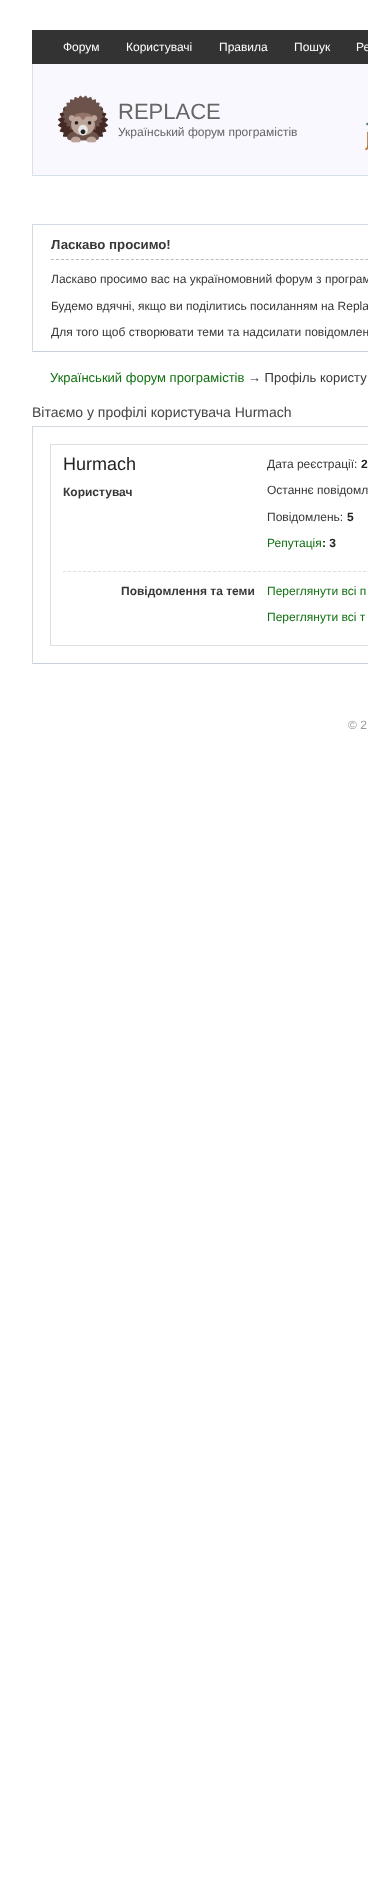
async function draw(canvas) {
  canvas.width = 368
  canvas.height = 1897
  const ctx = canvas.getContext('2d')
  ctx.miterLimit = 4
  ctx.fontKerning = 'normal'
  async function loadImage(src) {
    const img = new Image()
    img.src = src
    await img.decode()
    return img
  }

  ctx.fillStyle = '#fff'
  ctx.fillRect(0, 0, 368, 1897)
  ctx.fillStyle = '#d7dfea'
  ctx.fillRect(32, 175, 336, 1)
  ctx.fillRect(32, 61, 1, 115)
  ctx.fillStyle = '#333'
  ctx.fillRect(32, 30, 336, 34)
  ctx.font = '12px Liberation Sans'
  ctx.fillStyle = '#fff'
  ctx.fillText('Форум', 63, 51)
  ctx.fillText('Користувачі', 126, 51)
  ctx.fillText('Правила', 219, 51)
  ctx.fillText('Пошук', 294, 51)
  ctx.fillText('Ре', 356, 51)
  ctx.fillStyle = '#f8f8fe'
  ctx.fillRect(33, 64, 335, 111)
  ctx.drawImage(await loadImage('image0.png'), 58, 95, 50, 48)
  ctx.font = '22px Liberation Sans'
  ctx.fillStyle = '#666'
  ctx.fillText('REPLACE', 118, 119)
  ctx.font = '12px Liberation Sans'
  ctx.fillText('Український форум програмістів', 118, 136)
  ctx.drawImage(await loadImage('image1.png'), 365, 122, 3, 29)
  ctx.fillStyle = '#d3dae1'
  ctx.fillRect(32, 224, 336, 1)
  ctx.fillStyle = '#cbd1d8'
  ctx.fillRect(32, 351, 336, 1)
  ctx.fillStyle = '#d3dae1'
  ctx.fillRect(32, 224, 1, 128)
  ctx.beginPath()
  ctx.moveTo(51, 259.5)
  ctx.lineTo(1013, 259.5)
  ctx.strokeStyle = '#bbb'
  ctx.setLineDash([3, 1.99])
  ctx.stroke()
  ctx.font = 'bold 13.25px Liberation Sans'
  ctx.fillStyle = '#373737'
  ctx.fillText('Ласкаво просимо!', 51, 249)
  ctx.font = '12px Liberation Sans'
  ctx.fillText('Ласкаво просимо вас на україномовний форум з програм', 51, 283)
  ctx.fillText('Будемо вдячні, якщо ви поділитись посиланням на Repla', 51, 310)
  ctx.fillText('Для того щоб створювати теми та надсилати повідомлен', 51, 336)
  ctx.font = '13px Liberation Sans'
  ctx.fillStyle = '#107010'
  ctx.fillText('Український форум програмістів', 50, 382)
  ctx.fillStyle = '#373737'
  ctx.fillText('→ Профіль користу', 248, 382)
  ctx.font = '14px Liberation Sans'
  ctx.fillStyle = '#444'
  ctx.fillText('Вітаємо у профілі користувача Hurmach', 32, 417)
  ctx.fillStyle = '#d3dae1'
  ctx.fillRect(32, 426, 336, 1)
  ctx.fillStyle = '#cbd1d8'
  ctx.fillRect(32, 663, 336, 1)
  ctx.fillStyle = '#d3dae1'
  ctx.fillRect(32, 426, 1, 238)
  ctx.strokeStyle = '#dbe0e4'
  ctx.setLineDash([])
  ctx.strokeRect(50.5, 444.5, 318, 201)
  ctx.font = '18px Liberation Sans'
  ctx.fillStyle = '#222'
  ctx.fillText('Hurmach', 63, 470)
  ctx.font = 'bold 12px Liberation Sans'
  ctx.fillStyle = '#373737'
  ctx.fillText('Користувач', 63, 496)
  ctx.font = '12px Liberation Sans'
  ctx.fillText('Дата реєстрації:', 267, 468)
  ctx.font = 'bold 12px Liberation Sans'
  ctx.fillStyle = '#222'
  ctx.fillText('2', 361, 468)
  ctx.font = '12px Liberation Sans'
  ctx.fillStyle = '#373737'
  ctx.fillText('Останнє повідомл', 267, 494)
  ctx.fillText('Повідомлень:', 267, 521)
  ctx.font = 'bold 12px Liberation Sans'
  ctx.fillStyle = '#222'
  ctx.fillText('5', 347, 521)
  ctx.font = '12px Liberation Sans'
  ctx.fillStyle = '#107010'
  ctx.fillText('Репутація', 267, 547)
  ctx.font = 'bold 12px Liberation Sans'
  ctx.fillStyle = '#222'
  ctx.fillText(': 3', 322, 547)
  ctx.beginPath()
  ctx.moveTo(63, 571.5)
  ctx.lineTo(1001, 571.5)
  ctx.setLineDash([3, 2])
  ctx.stroke()
  ctx.fillStyle = '#373737'
  ctx.fillText('Повідомлення та теми', 121, 595)
  ctx.font = '12px Liberation Sans'
  ctx.fillStyle = '#107010'
  ctx.fillText('Переглянути всі п', 267, 595)
  ctx.fillText('Переглянути всі т', 267, 621)
  ctx.fillStyle = '#999'
  ctx.fillText('© 2', 348, 729)
}

draw(document.querySelector('canvas'))
